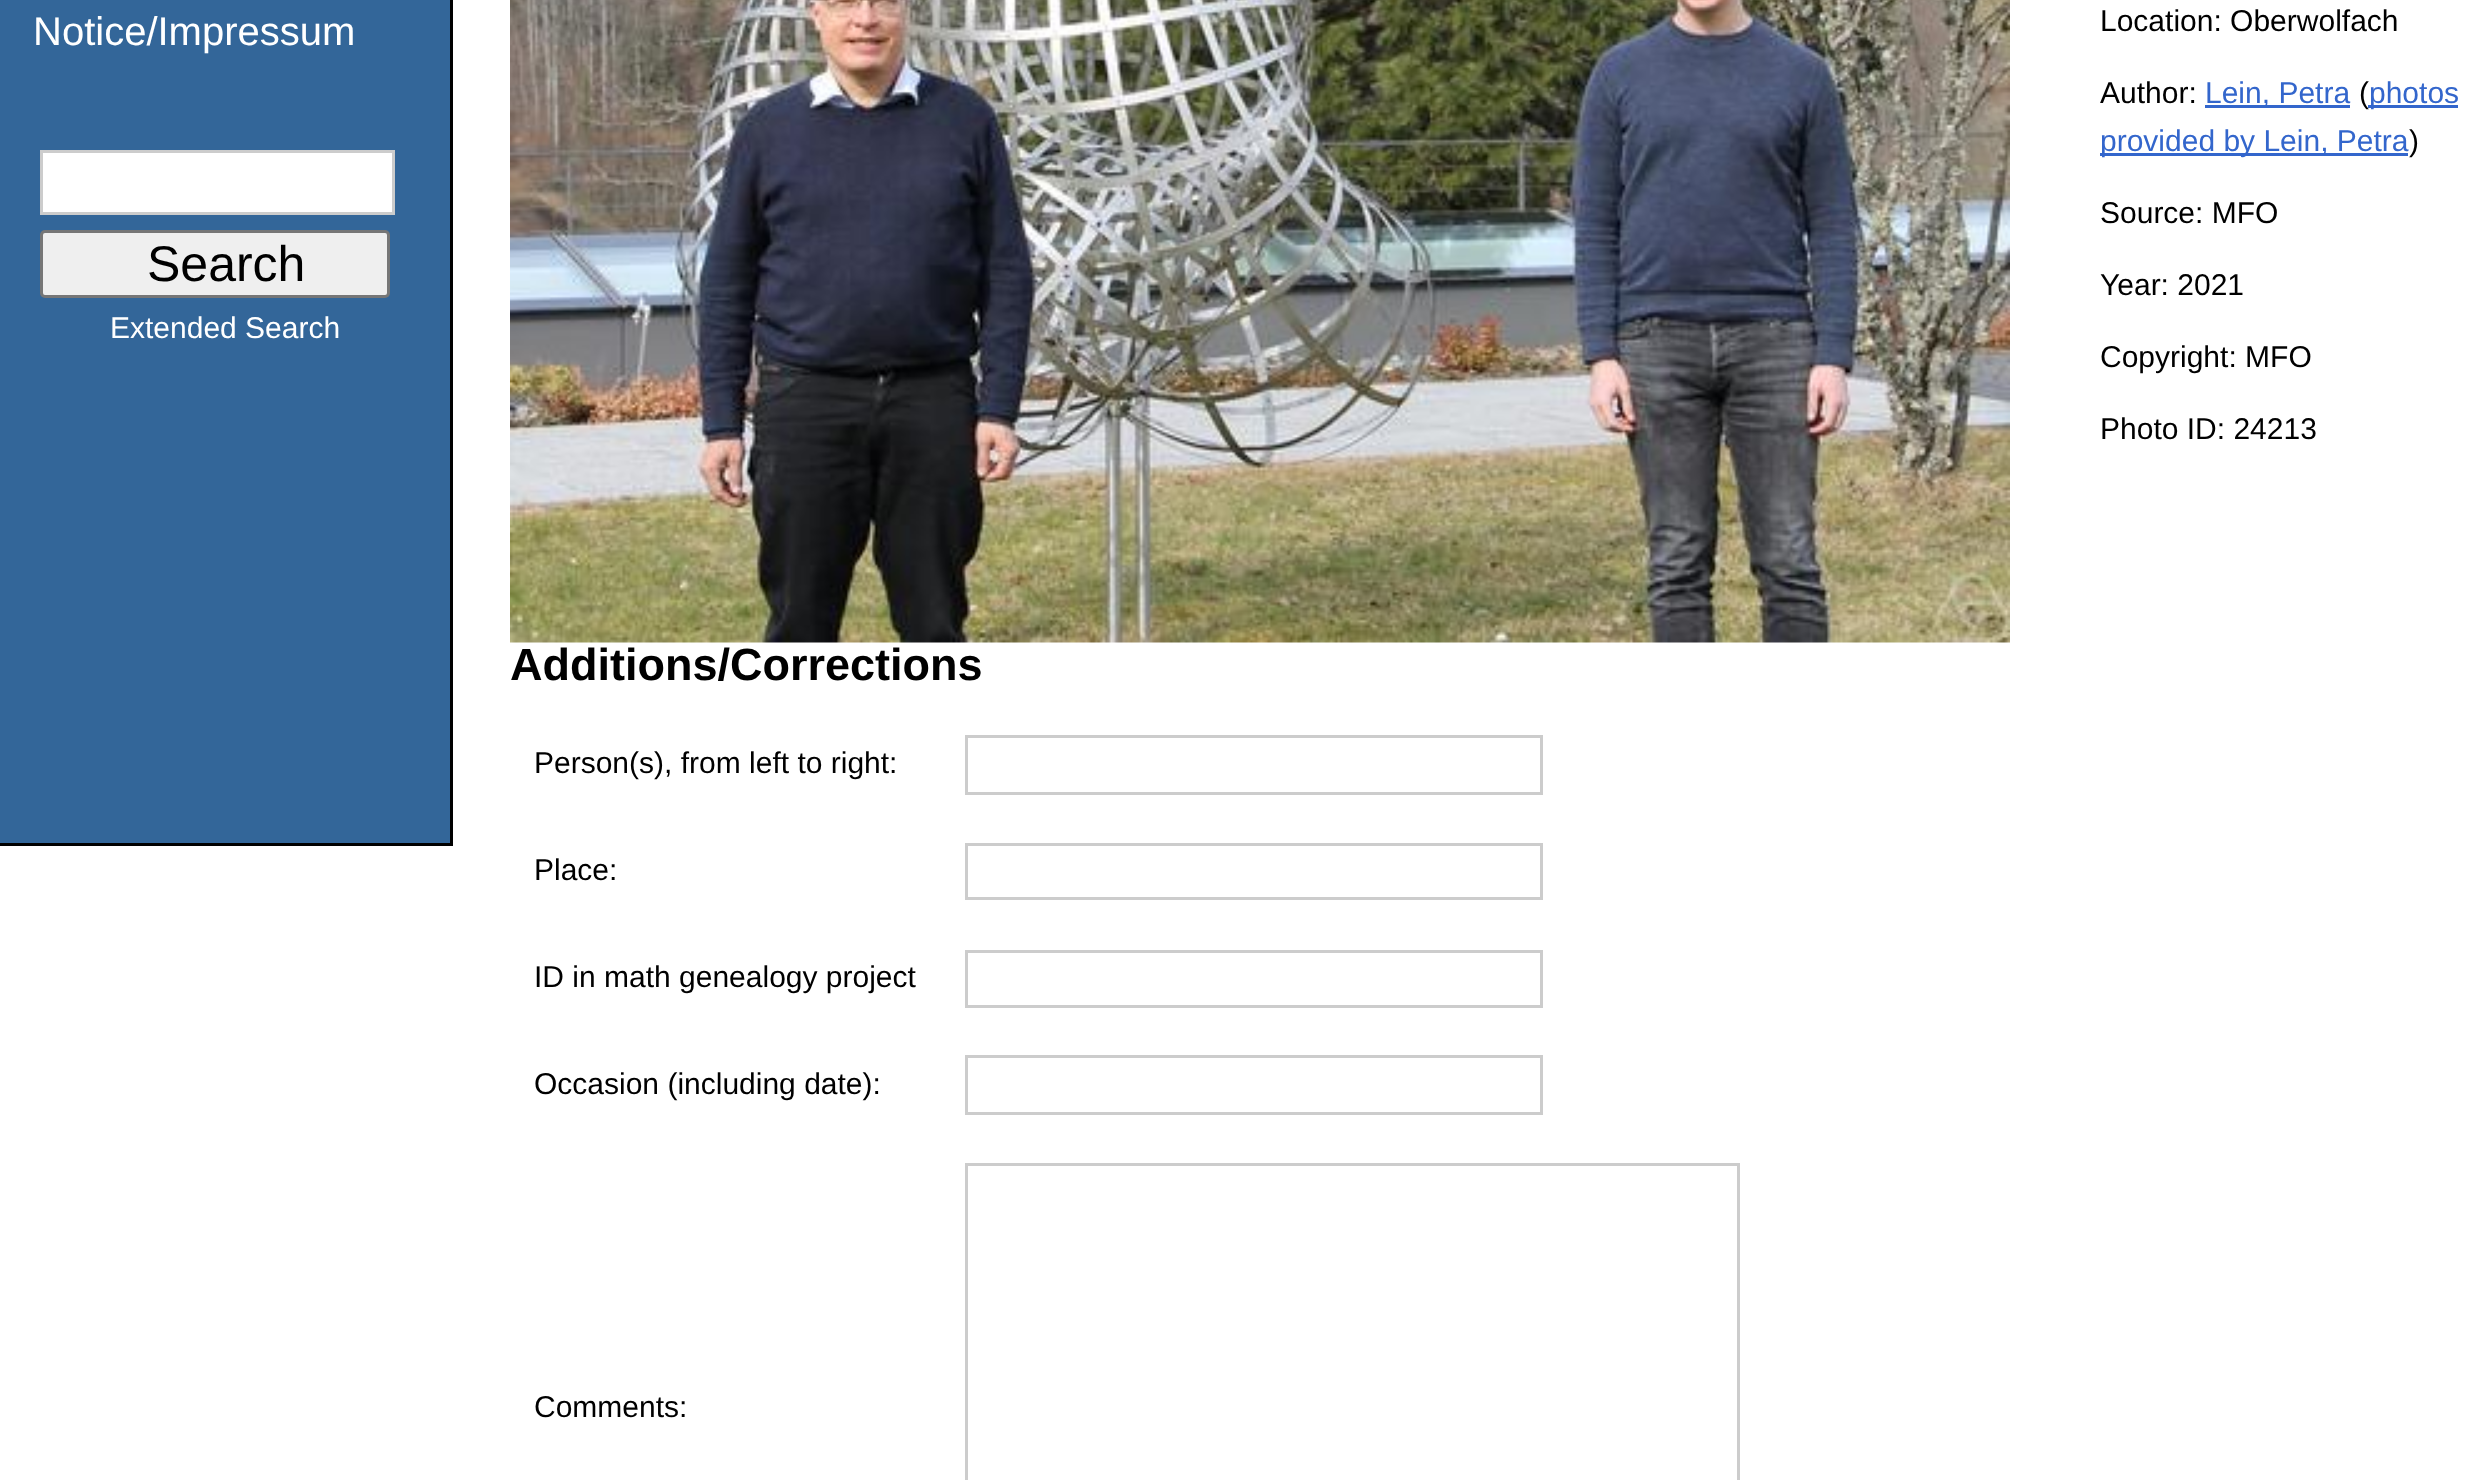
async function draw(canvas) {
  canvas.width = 2472
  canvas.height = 1480
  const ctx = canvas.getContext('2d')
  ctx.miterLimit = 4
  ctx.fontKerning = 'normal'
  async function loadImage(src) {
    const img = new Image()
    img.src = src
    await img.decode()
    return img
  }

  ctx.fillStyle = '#fff'
  ctx.fillRect(0, 0, 2472, 1480)
  ctx.fillStyle = '#369'
  ctx.fillRect(0, 0, 450, 843)
  ctx.fillStyle = '#000'
  ctx.fillRect(450, 0, 3, 845)
  ctx.fillRect(0, 843, 453, 3)
  ctx.font = '40px Liberation Sans'
  ctx.fillStyle = '#fff'
  ctx.fillText('Notice/Impressum', 33, 45)
  ctx.beginPath()
  ctx.rect(41.5, 151.5, 352, 62)
  ctx.fill()
  ctx.strokeStyle = '#ccc'
  ctx.lineWidth = 3
  ctx.stroke()
  ctx.fillStyle = '#efefef'
  ctx.beginPath()
  ctx.roundRect(41.5, 231.5, 347, 65, 3.5)
  ctx.fill()
  ctx.strokeStyle = '#767676'
  ctx.stroke()
  ctx.font = '50px Liberation Sans'
  ctx.fillStyle = '#000'
  ctx.fillText('Search', 147, 281)
  ctx.font = '30px Liberation Sans'
  ctx.fillStyle = '#fff'
  ctx.fillText('Extended Search', 110, 338)
  ctx.drawImage(await loadImage('image0.png'), 510, 0, 1500, 643)
  ctx.fillStyle = '#000'
  ctx.fillText('Location: Oberwolfach', 2100, 31)
  ctx.fillText('Author:', 2100, 103)
  ctx.fillStyle = '#36c'
  ctx.fillRect(2205, 105, 145, 3)
  ctx.fillText('Lein, Petra', 2205, 103)
  ctx.fillStyle = '#000'
  ctx.fillText('(', 2359, 103)
  ctx.fillStyle = '#36c'
  ctx.fillRect(2368, 105, 90, 3)
  ctx.fillText('photos', 2369, 103)
  ctx.fillRect(2100, 153, 308, 3)
  ctx.fillText('provided by Lein, Petra', 2100, 151)
  ctx.fillStyle = '#000'
  ctx.fillText(')', 2409, 151)
  ctx.fillText('Source: MFO', 2100, 223)
  ctx.fillText('Year: 2021', 2100, 295)
  ctx.fillText('Copyright: MFO', 2100, 367)
  ctx.fillText('Photo ID: 24213', 2100, 439)
  ctx.font = 'bold 45px Liberation Sans'
  ctx.fillText('Additions/Corrections', 510, 680)
  ctx.font = '30px Liberation Sans'
  ctx.fillText('Person(s), from left to right:', 534, 773)
  ctx.strokeStyle = '#ccc'
  ctx.strokeRect(966.5, 736.5, 575, 57)
  ctx.fillText('Place:', 534, 880)
  ctx.strokeRect(966.5, 844.5, 575, 54)
  ctx.fillText('ID in math genealogy project', 534, 987)
  ctx.strokeRect(966.5, 951.5, 575, 55)
  ctx.fillText('Occasion (including date):', 534, 1094)
  ctx.strokeRect(966.5, 1056.5, 575, 57)
  ctx.fillText('Comments:', 534, 1417)
  ctx.strokeRect(966.5, 1164.5, 772, 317)
}

draw(document.querySelector('canvas'))
